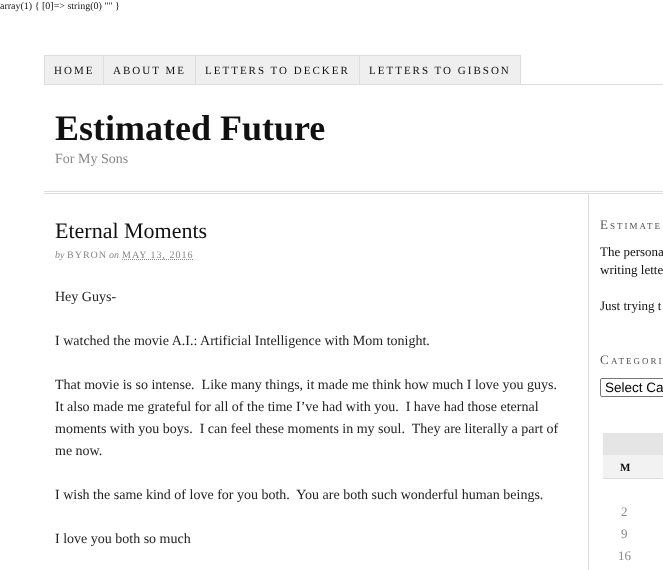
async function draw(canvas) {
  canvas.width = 663
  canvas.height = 570
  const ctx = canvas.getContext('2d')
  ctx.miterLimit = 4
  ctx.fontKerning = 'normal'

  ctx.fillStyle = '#fff'
  ctx.fillRect(0, 0, 663, 570)
  ctx.font = '10px Liberation Serif'
  ctx.fillStyle = '#111'
  ctx.fillText('array(1) { [0]=> string(0) "" }', 0, 9)
  ctx.fillStyle = '#ddd'
  ctx.fillRect(44, 84, 619, 1)
  ctx.fillRect(44, 55, 1, 30)
  ctx.fillStyle = '#efefef'
  ctx.fillRect(45, 56, 58, 28)
  ctx.fillStyle = '#ddd'
  ctx.fillRect(45, 55, 476, 1)
  ctx.fillRect(103, 55, 1, 30)
  ctx.letterSpacing = '2px'
  ctx.font = '11px Liberation Serif'
  ctx.fillStyle = '#111'
  ctx.fillText('HOME', 54, 74)
  ctx.fillStyle = '#efefef'
  ctx.fillRect(104, 56, 91, 28)
  ctx.fillStyle = '#ddd'
  ctx.fillRect(195, 55, 1, 30)
  ctx.fillStyle = '#111'
  ctx.fillText('ABOUT ME', 113, 74)
  ctx.fillStyle = '#efefef'
  ctx.fillRect(196, 56, 163, 28)
  ctx.fillStyle = '#ddd'
  ctx.fillRect(359, 55, 1, 30)
  ctx.fillStyle = '#111'
  ctx.fillText('LETTERS TO DECKER', 205, 74)
  ctx.fillStyle = '#efefef'
  ctx.fillRect(360, 56, 160, 28)
  ctx.fillStyle = '#ddd'
  ctx.fillRect(520, 55, 1, 30)
  ctx.fillStyle = '#111'
  ctx.fillText('LETTERS TO GIBSON', 369, 74)
  ctx.fillStyle = '#ddd'
  ctx.fillRect(44, 191, 619, 1)
  ctx.fillRect(44, 193, 619, 1)
  ctx.letterSpacing = '0px'
  ctx.font = 'bold 36px Liberation Serif'
  ctx.fillStyle = '#111'
  ctx.fillText('Estimated Future', 55, 140)
  ctx.font = '14px Liberation Serif'
  ctx.fillStyle = '#888'
  ctx.fillText('For My Sons', 55, 163)
  ctx.fillStyle = '#ddd'
  ctx.fillRect(588, 194, 1, 376)
  ctx.font = '22px Liberation Serif'
  ctx.fillStyle = '#111'
  ctx.fillText('Eternal Moments', 55, 238)
  ctx.font = 'italic 10px Liberation Serif'
  ctx.fillStyle = '#888'
  ctx.fillText('by', 55, 258)
  ctx.letterSpacing = '1px'
  ctx.font = '10px Liberation Serif'
  ctx.fillText('BYRON', 67, 258)
  ctx.letterSpacing = '0px'
  ctx.font = 'italic 10px Liberation Serif'
  ctx.fillText('on', 109, 258)
  ctx.beginPath()
  ctx.moveTo(122, 259.5)
  ctx.lineTo(193.5, 259.5)
  ctx.strokeStyle = '#888'
  ctx.setLineDash([1, 1])
  ctx.stroke()
  ctx.letterSpacing = '1px'
  ctx.font = '10px Liberation Serif'
  ctx.fillText('MAY 13, 2016', 122, 258)
  ctx.letterSpacing = '0px'
  ctx.font = '14px Liberation Serif'
  ctx.fillStyle = '#222'
  ctx.fillText('Hey Guys-', 55, 301)
  ctx.fillText('I watched the movie A.I.: Artificial Intelligence with Mom tonight.', 55, 345)
  ctx.fillText('That movie is so intense.  Like many things, it made me think how much I love you guys.', 55, 389)
  ctx.fillText('It also made me grateful for all of the time I’ve had with you.  I have had those eternal', 55, 411)
  ctx.fillText('moments with you boys.  I can feel these moments in my soul.  They are literally a part of', 55, 433)
  ctx.fillText('me now.', 55, 455)
  ctx.fillText('I wish the same kind of love for you both.  You are both such wonderful human beings.', 55, 499)
  ctx.fillText('I love you both so much', 55, 543)
  ctx.letterSpacing = '2px'
  ctx.font = '13px Liberation Serif'
  ctx.fillStyle = '#555'
  ctx.fillText('E', 600, 229)
  ctx.font = '9px Liberation Serif'
  ctx.fillText('STIMATE', 610, 229)
  ctx.letterSpacing = '0px'
  ctx.font = '13px Liberation Serif'
  ctx.fillStyle = '#111'
  ctx.fillText('The persona', 600, 256)
  ctx.fillText('writing lette', 600, 274)
  ctx.fillText('Just trying t', 600, 310)
  ctx.letterSpacing = '2px'
  ctx.fillStyle = '#555'
  ctx.fillText('C', 600, 364)
  ctx.font = '9px Liberation Serif'
  ctx.fillText('ATEGORI', 611, 364)
  ctx.beginPath()
  ctx.roundRect(600.5, 378.5, 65, 18, 1.5)
  ctx.strokeStyle = '#767676'
  ctx.setLineDash([])
  ctx.stroke()
  ctx.letterSpacing = '0px'
  ctx.font = '13.5px Liberation Sans'
  ctx.fillStyle = '#000'
  ctx.fillText('Select Ca', 605, 392)
  ctx.fillStyle = '#e5e5e5'
  ctx.fillRect(603, 433, 60, 22)
  ctx.fillStyle = '#f2f2f2'
  ctx.fillRect(603, 455, 60, 23)
  ctx.font = 'bold 11px Liberation Serif'
  ctx.fillStyle = '#111'
  ctx.fillText('M', 620, 471)
  ctx.fillStyle = '#ddd'
  ctx.fillRect(603, 478, 60, 1)
  ctx.font = '13px Liberation Serif'
  ctx.fillStyle = '#888'
  ctx.fillText('2', 621, 516)
  ctx.fillText('9', 621, 538)
  ctx.fillText('16', 618, 560)
}

draw(document.querySelector('canvas'))
